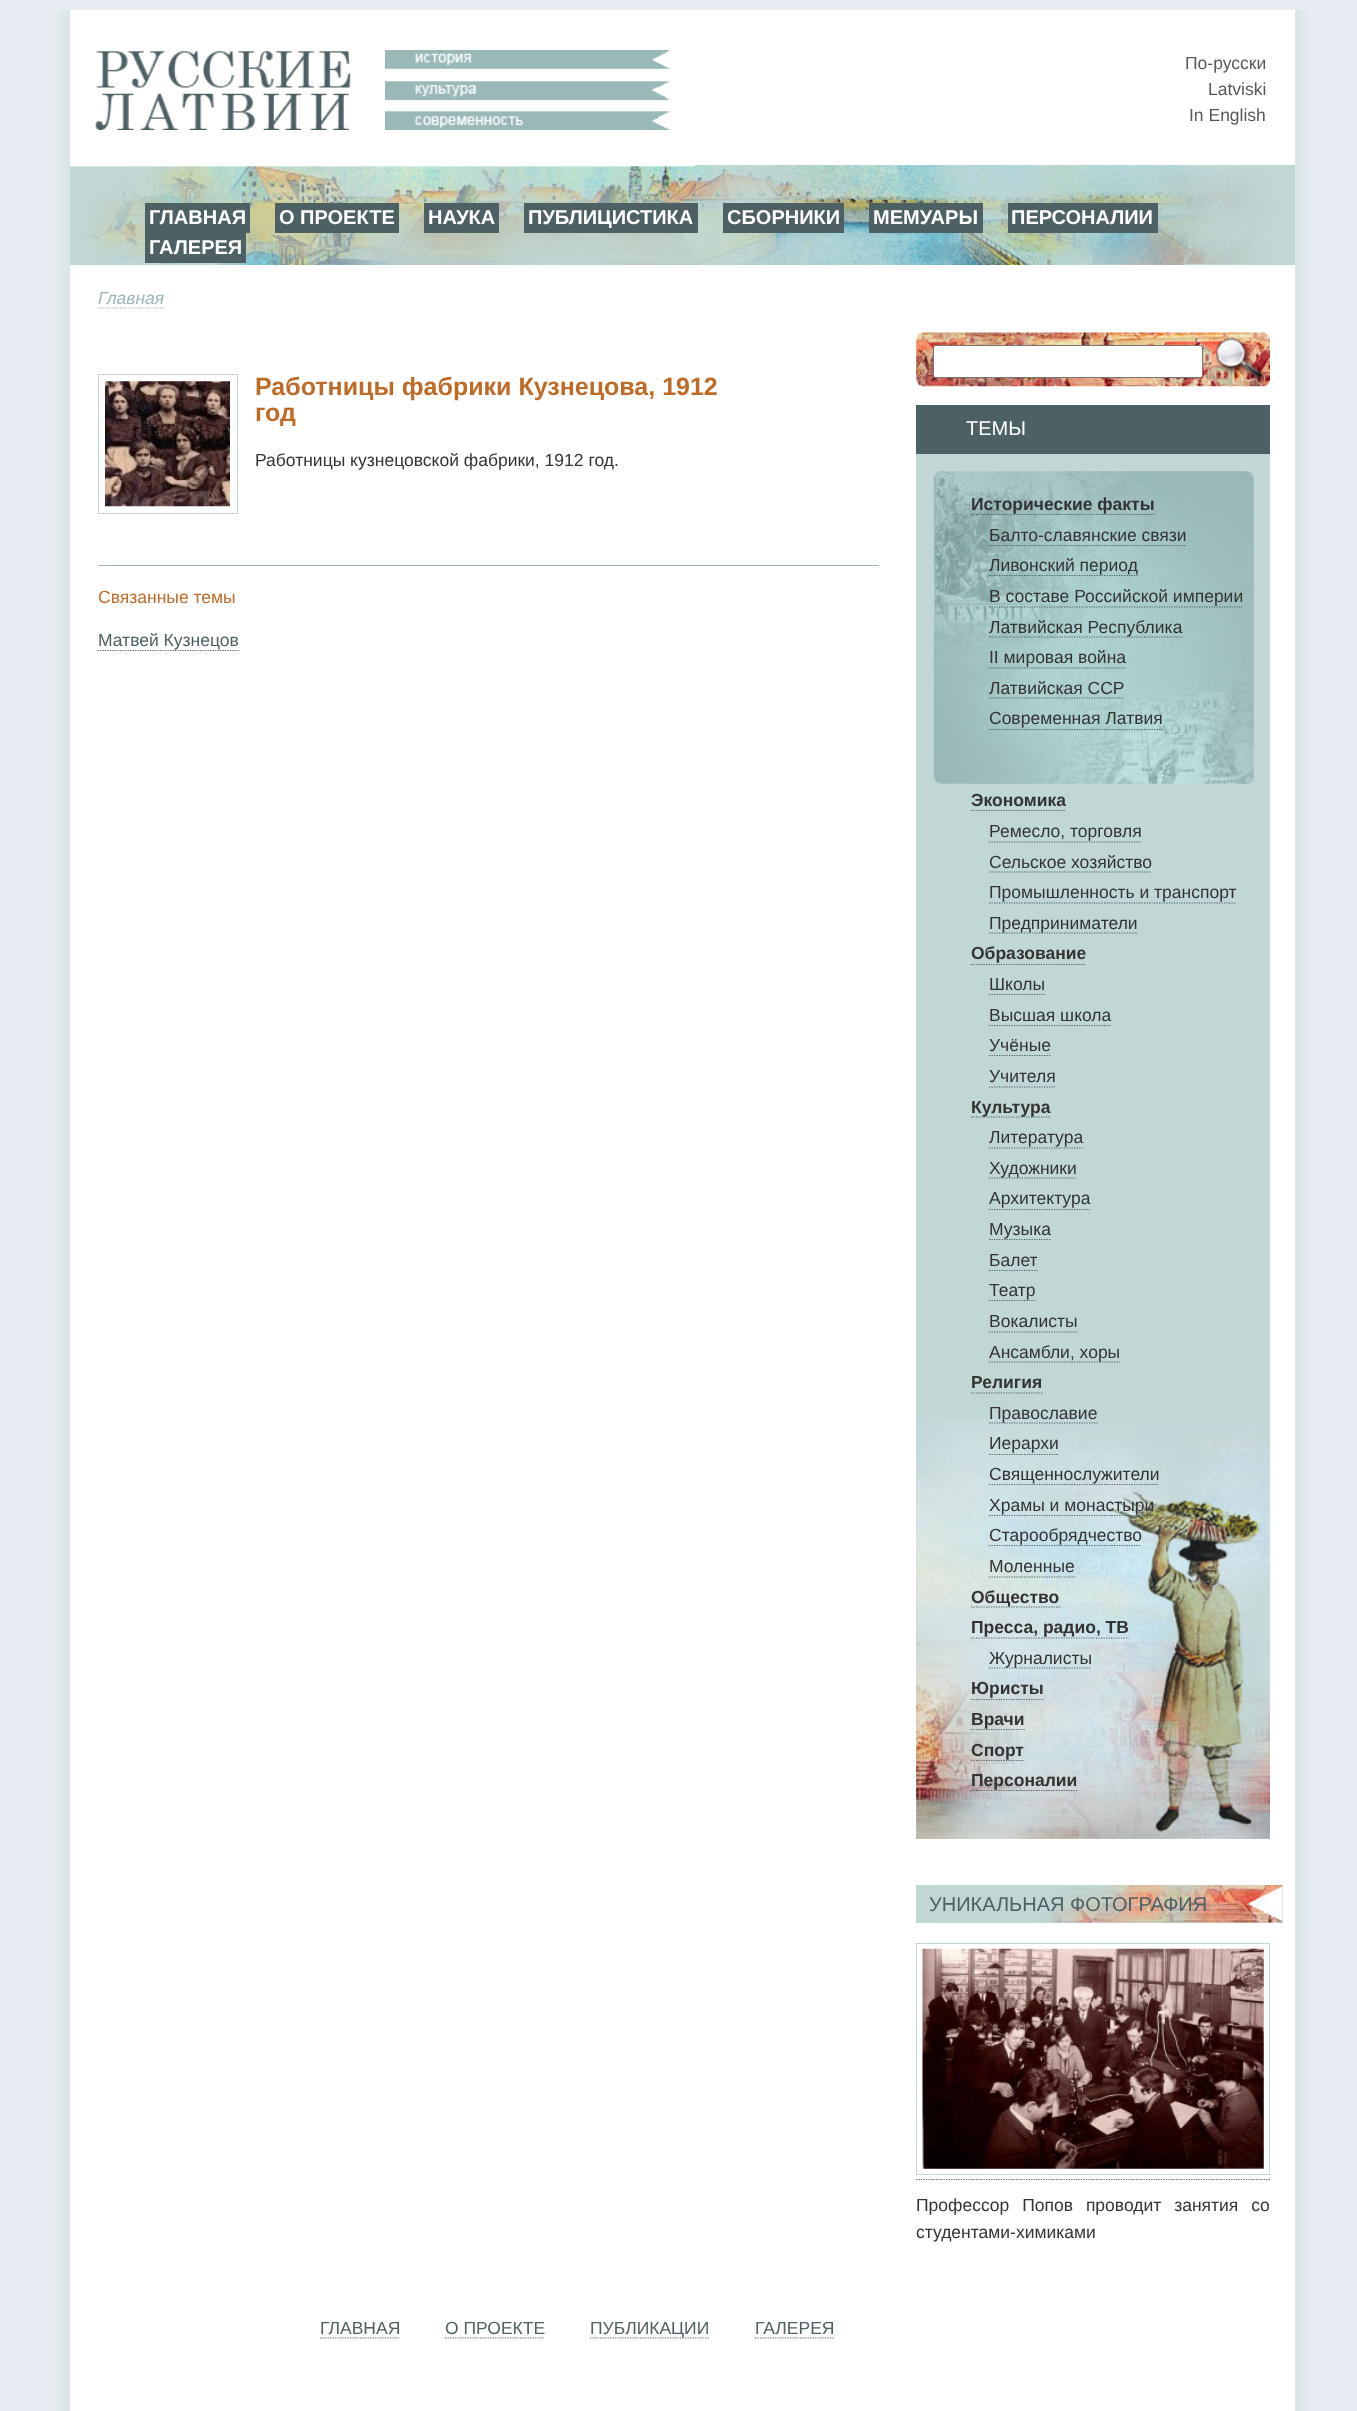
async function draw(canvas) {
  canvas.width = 1357
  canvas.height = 2411
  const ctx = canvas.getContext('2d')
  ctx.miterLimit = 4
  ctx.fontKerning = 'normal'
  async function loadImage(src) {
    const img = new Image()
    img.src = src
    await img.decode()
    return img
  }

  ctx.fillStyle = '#e6ecf2'
  ctx.fillRect(0, 0, 1357, 2411)
  ctx.drawImage(await loadImage('image0.png'), 58, 10, 1249, 2401)
  ctx.drawImage(await loadImage('image1.png'), 95, 51, 257, 79)
  ctx.drawImage(await loadImage('image2.png'), 385, 50, 284, 80)
  ctx.font = '17.5px Liberation Sans'
  ctx.fillStyle = '#54595c'
  ctx.fillText('По-русски', 1185, 69)
  ctx.fillText('Latviski', 1208, 95)
  ctx.fillText('In English', 1189, 121)
  ctx.drawImage(await loadImage('image3.png'), 70, 165, 1225, 100)
  ctx.fillStyle = '#4d6165'
  ctx.fillRect(145, 203, 105, 30)
  ctx.font = 'bold 20px Liberation Sans'
  ctx.fillStyle = '#fff'
  ctx.fillText('ГЛАВНАЯ', 149, 224)
  ctx.fillStyle = '#4d6165'
  ctx.fillRect(275, 203, 124, 30)
  ctx.fillStyle = '#fff'
  ctx.fillText('О ПРОЕКТЕ', 279, 224)
  ctx.fillStyle = '#4d6165'
  ctx.fillRect(424, 203, 75, 30)
  ctx.fillStyle = '#fff'
  ctx.fillText('НАУКА', 428, 224)
  ctx.fillStyle = '#4d6165'
  ctx.fillRect(524, 203, 174, 30)
  ctx.fillStyle = '#fff'
  ctx.fillText('ПУБЛИЦИСТИКА', 528, 224)
  ctx.fillStyle = '#4d6165'
  ctx.fillRect(723, 203, 121, 30)
  ctx.beginPath()
  ctx.moveTo(722.5, 232)
  ctx.lineTo(844, 232)
  ctx.strokeStyle = '#4d6165'
  ctx.lineWidth = 1.2
  ctx.setLineDash([1.25, 1.25])
  ctx.stroke()
  ctx.fillStyle = '#fff'
  ctx.fillText('СБОРНИКИ', 727, 224)
  ctx.fillStyle = '#4d6165'
  ctx.fillRect(869, 203, 114, 30)
  ctx.fillStyle = '#fff'
  ctx.fillText('МЕМУАРЫ', 873, 224)
  ctx.fillStyle = '#4d6165'
  ctx.fillRect(1008, 203, 150, 30)
  ctx.beginPath()
  ctx.moveTo(1007.5, 232)
  ctx.lineTo(1157.5, 232)
  ctx.stroke()
  ctx.fillStyle = '#fff'
  ctx.fillText('ПЕРСОНАЛИИ', 1011, 224)
  ctx.fillStyle = '#4d6165'
  ctx.fillRect(145, 233, 101, 30)
  ctx.fillStyle = '#fff'
  ctx.fillText('ГАЛЕРЕЯ', 149, 254)
  ctx.font = 'italic 17.5px Liberation Sans'
  ctx.fillStyle = '#99b8b7'
  ctx.fillText('Главная', 98, 304)
  ctx.beginPath()
  ctx.moveTo(97.5, 308)
  ctx.lineTo(164, 308)
  ctx.strokeStyle = '#99b8b7'
  ctx.stroke()
  ctx.strokeStyle = '#c1d7d6'
  ctx.lineWidth = 1
  ctx.setLineDash([])
  ctx.strokeRect(98.5, 374.5, 139, 139)
  ctx.drawImage(await loadImage('image4.png'), 105, 381, 125, 126)
  ctx.font = 'bold 25px Liberation Sans'
  ctx.fillStyle = '#bf6b27'
  ctx.fillText('Работницы фабрики Кузнецова, 1912', 255, 395)
  ctx.fillText('год', 255, 421)
  ctx.font = '17.5px Liberation Sans'
  ctx.fillStyle = '#333'
  ctx.fillText('Работницы кузнецовской фабрики, 1912 год.', 255, 466)
  ctx.fillStyle = '#99b8b7'
  ctx.fillRect(98, 565, 781, 1)
  ctx.fillStyle = '#bf6b27'
  ctx.fillText('Связанные темы', 98, 603)
  ctx.beginPath()
  ctx.moveTo(97.5, 650.5)
  ctx.lineTo(239, 650.5)
  ctx.strokeStyle = '#4d6165'
  ctx.lineWidth = 1.2
  ctx.setLineDash([1.25, 1.25])
  ctx.stroke()
  ctx.fillStyle = '#4d6165'
  ctx.fillText('Матвей Кузнецов', 98, 646)
  ctx.drawImage(await loadImage('image5.png'), 916, 332, 354, 55)
  ctx.fillStyle = '#fff'
  ctx.beginPath()
  ctx.roundRect(933.5, 345.5, 269, 32, 2)
  ctx.fill()
  ctx.strokeStyle = '#767676'
  ctx.lineWidth = 1
  ctx.setLineDash([])
  ctx.stroke()
  ctx.drawImage(await loadImage('image6.png'), 1216, 337, 52, 48)
  ctx.fillStyle = '#4d6165'
  ctx.fillRect(916, 405, 354, 49)
  ctx.font = '20px Liberation Sans'
  ctx.fillStyle = '#fff'
  ctx.fillText('ТЕМЫ', 966, 435)
  ctx.fillStyle = '#c1d7d6'
  ctx.fillRect(916, 454, 354, 1385)
  ctx.drawImage(await loadImage('image7.png'), 916, 1418, 354, 421)
  ctx.drawImage(await loadImage('image8.png'), 933, 471, 321, 313)
  ctx.beginPath()
  ctx.moveTo(971, 514.5)
  ctx.lineTo(1155, 514.5)
  ctx.strokeStyle = '#4d6165'
  ctx.lineWidth = 1.2
  ctx.setLineDash([1.25, 1.25])
  ctx.stroke()
  ctx.font = 'bold 17.5px Liberation Sans'
  ctx.fillStyle = '#333'
  ctx.fillText('Исторические факты', 971, 510)
  ctx.font = '17.5px Liberation Sans'
  ctx.fillText('Балто-славянские связи', 989, 541)
  ctx.beginPath()
  ctx.moveTo(989, 545.5)
  ctx.lineTo(1186, 545.5)
  ctx.stroke()
  ctx.beginPath()
  ctx.moveTo(989, 575.5)
  ctx.lineTo(1137.5, 575.5)
  ctx.stroke()
  ctx.fillText('Ливонский период', 989, 571)
  ctx.fillText('В составе Российской империи', 989, 602)
  ctx.beginPath()
  ctx.moveTo(989, 607)
  ctx.lineTo(1242.5, 607)
  ctx.stroke()
  ctx.beginPath()
  ctx.moveTo(989, 637)
  ctx.lineTo(1182.5, 637)
  ctx.stroke()
  ctx.fillText('Латвийская Республика', 989, 633)
  ctx.fillText('II мировая война', 989, 663)
  ctx.beginPath()
  ctx.moveTo(989, 668)
  ctx.lineTo(1126, 668)
  ctx.stroke()
  ctx.fillText('Латвийская ССР', 989, 694)
  ctx.beginPath()
  ctx.moveTo(989, 698)
  ctx.lineTo(1124, 698)
  ctx.stroke()
  ctx.fillText('Современная Латвия', 989, 724)
  ctx.beginPath()
  ctx.moveTo(989, 729.5)
  ctx.lineTo(1162.5, 729.5)
  ctx.stroke()
  ctx.font = 'bold 17.5px Liberation Sans'
  ctx.fillText('Экономика', 971, 806)
  ctx.beginPath()
  ctx.moveTo(971, 810.5)
  ctx.lineTo(1066, 810.5)
  ctx.stroke()
  ctx.font = '17.5px Liberation Sans'
  ctx.fillText('Ремесло, торговля', 989, 837)
  ctx.beginPath()
  ctx.moveTo(989, 842)
  ctx.lineTo(1141, 842)
  ctx.stroke()
  ctx.fillText('Сельское хозяйство', 989, 868)
  ctx.beginPath()
  ctx.moveTo(989, 872)
  ctx.lineTo(1151, 872)
  ctx.stroke()
  ctx.fillText('Промышленность и транспорт', 989, 898)
  ctx.beginPath()
  ctx.moveTo(989, 903)
  ctx.lineTo(1236, 903)
  ctx.stroke()
  ctx.beginPath()
  ctx.moveTo(989, 933)
  ctx.lineTo(1137.5, 933)
  ctx.stroke()
  ctx.fillText('Предприниматели', 989, 929)
  ctx.font = 'bold 17.5px Liberation Sans'
  ctx.fillText('Образование', 971, 959)
  ctx.beginPath()
  ctx.moveTo(971, 964.5)
  ctx.lineTo(1086, 964.5)
  ctx.stroke()
  ctx.font = '17.5px Liberation Sans'
  ctx.fillText('Школы', 989, 990)
  ctx.beginPath()
  ctx.moveTo(989, 994.5)
  ctx.lineTo(1045, 994.5)
  ctx.stroke()
  ctx.fillText('Высшая школа', 989, 1021)
  ctx.beginPath()
  ctx.moveTo(989, 1025.5)
  ctx.lineTo(1111, 1025.5)
  ctx.stroke()
  ctx.fillText('Учёные', 989, 1051)
  ctx.beginPath()
  ctx.moveTo(989, 1055.5)
  ctx.lineTo(1051, 1055.5)
  ctx.stroke()
  ctx.fillText('Учителя', 989, 1082)
  ctx.beginPath()
  ctx.moveTo(989, 1087)
  ctx.lineTo(1055, 1087)
  ctx.stroke()
  ctx.beginPath()
  ctx.moveTo(971, 1117)
  ctx.lineTo(1051, 1117)
  ctx.stroke()
  ctx.font = 'bold 17.5px Liberation Sans'
  ctx.fillText('Культура', 971, 1113)
  ctx.font = '17.5px Liberation Sans'
  ctx.fillText('Литература', 989, 1143)
  ctx.beginPath()
  ctx.moveTo(989, 1148)
  ctx.lineTo(1082.5, 1148)
  ctx.stroke()
  ctx.beginPath()
  ctx.moveTo(989, 1178)
  ctx.lineTo(1076, 1178)
  ctx.stroke()
  ctx.fillText('Художники', 989, 1174)
  ctx.fillText('Aрхитектура', 989, 1204)
  ctx.beginPath()
  ctx.moveTo(989, 1209.5)
  ctx.lineTo(1090, 1209.5)
  ctx.stroke()
  ctx.beginPath()
  ctx.moveTo(989, 1239.5)
  ctx.lineTo(1051, 1239.5)
  ctx.stroke()
  ctx.fillText('Музыка', 989, 1235)
  ctx.fillText('Балет', 989, 1266)
  ctx.beginPath()
  ctx.moveTo(989, 1270.5)
  ctx.lineTo(1037.5, 1270.5)
  ctx.stroke()
  ctx.beginPath()
  ctx.moveTo(989, 1300.5)
  ctx.lineTo(1035, 1300.5)
  ctx.stroke()
  ctx.fillText('Театр', 989, 1296)
  ctx.fillText('Вокалисты', 989, 1327)
  ctx.beginPath()
  ctx.moveTo(989, 1332)
  ctx.lineTo(1077.5, 1332)
  ctx.stroke()
  ctx.beginPath()
  ctx.moveTo(989, 1362)
  ctx.lineTo(1120, 1362)
  ctx.stroke()
  ctx.fillText('Aнсамбли, хоры', 989, 1358)
  ctx.font = 'bold 17.5px Liberation Sans'
  ctx.fillText('Религия', 971, 1388)
  ctx.beginPath()
  ctx.moveTo(971, 1393)
  ctx.lineTo(1042.5, 1393)
  ctx.stroke()
  ctx.beginPath()
  ctx.moveTo(989, 1423)
  ctx.lineTo(1097.5, 1423)
  ctx.stroke()
  ctx.font = '17.5px Liberation Sans'
  ctx.fillText('Православие', 989, 1419)
  ctx.fillText('Иерархи', 989, 1449)
  ctx.beginPath()
  ctx.moveTo(989, 1454.5)
  ctx.lineTo(1059, 1454.5)
  ctx.stroke()
  ctx.beginPath()
  ctx.moveTo(989, 1484.5)
  ctx.lineTo(1159, 1484.5)
  ctx.stroke()
  ctx.fillText('Священнослужители', 989, 1480)
  ctx.beginPath()
  ctx.moveTo(989, 1515.5)
  ctx.lineTo(1154, 1515.5)
  ctx.stroke()
  ctx.fillText('Храмы и монастыри', 989, 1511)
  ctx.beginPath()
  ctx.moveTo(989, 1545.5)
  ctx.lineTo(1141, 1545.5)
  ctx.stroke()
  ctx.fillText('Старообрядчество', 989, 1541)
  ctx.fillText('Моленные', 989, 1572)
  ctx.beginPath()
  ctx.moveTo(989, 1577)
  ctx.lineTo(1075, 1577)
  ctx.stroke()
  ctx.beginPath()
  ctx.moveTo(971, 1607)
  ctx.lineTo(1060, 1607)
  ctx.stroke()
  ctx.font = 'bold 17.5px Liberation Sans'
  ctx.fillText('Общество', 971, 1603)
  ctx.fillText('Пресса, радио, ТВ', 971, 1633)
  ctx.beginPath()
  ctx.moveTo(971, 1638)
  ctx.lineTo(1129, 1638)
  ctx.stroke()
  ctx.beginPath()
  ctx.moveTo(989, 1668)
  ctx.lineTo(1091, 1668)
  ctx.stroke()
  ctx.font = '17.5px Liberation Sans'
  ctx.fillText('Журналисты', 989, 1664)
  ctx.font = 'bold 17.5px Liberation Sans'
  ctx.fillText('Юристы', 971, 1694)
  ctx.beginPath()
  ctx.moveTo(971, 1699.5)
  ctx.lineTo(1044, 1699.5)
  ctx.stroke()
  ctx.beginPath()
  ctx.moveTo(971, 1729.5)
  ctx.lineTo(1025, 1729.5)
  ctx.stroke()
  ctx.fillText('Врачи', 971, 1725)
  ctx.beginPath()
  ctx.moveTo(971, 1760.5)
  ctx.lineTo(1024, 1760.5)
  ctx.stroke()
  ctx.fillText('Спорт', 971, 1756)
  ctx.beginPath()
  ctx.moveTo(971, 1790.5)
  ctx.lineTo(1077.5, 1790.5)
  ctx.stroke()
  ctx.fillText('Персоналии', 971, 1786)
  ctx.fillStyle = '#c1d7d6'
  ctx.fillRect(916, 1885, 367, 38)
  ctx.drawImage(await loadImage('image9.png'), 1043, 1885, 240, 38)
  ctx.font = '20px Liberation Sans'
  ctx.fillStyle = '#4d6165'
  ctx.fillText('УНИКАЛЬНАЯ ФОТОГРАФИЯ', 929, 1911)
  ctx.strokeStyle = '#c1d7d6'
  ctx.lineWidth = 1
  ctx.setLineDash([])
  ctx.strokeRect(916.5, 1943.5, 353, 231)
  ctx.drawImage(await loadImage('image10.png'), 922, 1948, 342, 221)
  ctx.beginPath()
  ctx.moveTo(916, 2179.5)
  ctx.lineTo(1270, 2179.5)
  ctx.strokeStyle = '#4d6165'
  ctx.lineWidth = 1.2
  ctx.setLineDash([1.25, 1.25])
  ctx.stroke()
  ctx.wordSpacing = '8px'
  ctx.font = '17.5px Liberation Sans'
  ctx.fillStyle = '#333'
  ctx.fillText('Профессор Попов проводит занятия со', 916, 2211)
  ctx.wordSpacing = '0px'
  ctx.fillText('студентами-химиками', 916, 2238)
  ctx.fillStyle = '#4d6165'
  ctx.fillText('ГЛАВНАЯ', 320, 2334)
  ctx.beginPath()
  ctx.moveTo(320, 2338)
  ctx.lineTo(400, 2338)
  ctx.stroke()
  ctx.fillText('О ПРОЕКТЕ', 445, 2334)
  ctx.beginPath()
  ctx.moveTo(445, 2338)
  ctx.lineTo(545, 2338)
  ctx.stroke()
  ctx.beginPath()
  ctx.moveTo(590, 2338)
  ctx.lineTo(710, 2338)
  ctx.stroke()
  ctx.fillText('ПУБЛИКАЦИИ', 590, 2334)
  ctx.fillText('ГАЛЕРЕЯ', 755, 2334)
  ctx.beginPath()
  ctx.moveTo(755, 2338)
  ctx.lineTo(834, 2338)
  ctx.stroke()
}

draw(document.querySelector('canvas'))
